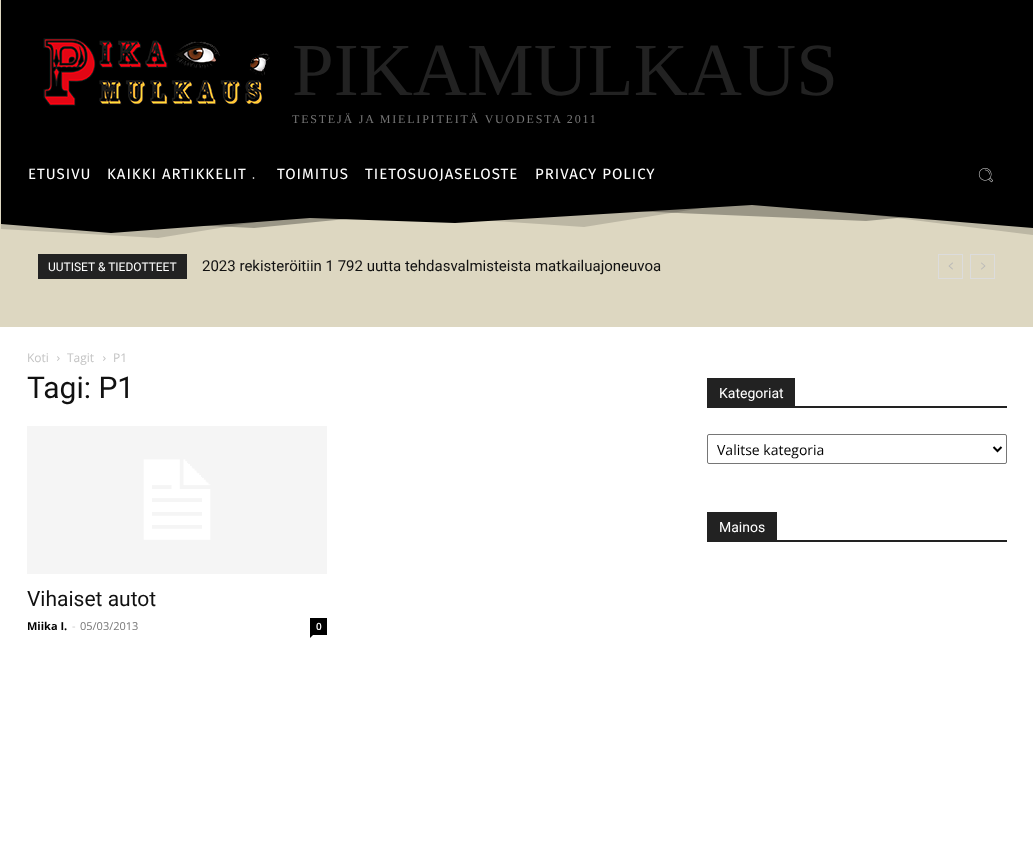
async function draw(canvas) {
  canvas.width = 1033
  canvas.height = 864
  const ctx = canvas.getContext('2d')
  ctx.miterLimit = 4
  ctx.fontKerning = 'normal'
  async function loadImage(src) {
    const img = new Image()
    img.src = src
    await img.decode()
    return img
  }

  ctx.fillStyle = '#ddd7c1'
  ctx.fillRect(0, 0, 1033, 864)
  ctx.fillStyle = '#000'
  ctx.fillRect(1, 0, 1032, 204)
  ctx.drawImage(await loadImage('image0.png'), 43, 38, 227, 68)
  ctx.font = '75px Liberation Serif'
  ctx.fillStyle = '#222'
  ctx.fillText('PIKAMULKAUS', 292, 95)
  ctx.letterSpacing = '1.8px'
  ctx.font = '12px Liberation Serif'
  ctx.fillStyle = '#767676'
  ctx.fillText('TESTEJÄ JA MIELIPITEITÄ VUODESTA 2011', 292, 123)
  ctx.letterSpacing = '1px'
  ctx.font = '15px Fira Sans'
  ctx.fillStyle = '#fff'
  ctx.fillText('ETUSIVU', 28, 179)
  ctx.fillText('KAIKKI ARTIKKELIT', 107, 179)
  ctx.drawImage(await loadImage('image1.png'), 252, 177, 3, 2)
  ctx.fillText('TOIMITUS', 277, 179)
  ctx.fillText('TIETOSUOJASELOSTE', 365, 179)
  ctx.fillText('PRIVACY POLICY', 535, 179)
  ctx.drawImage(await loadImage('image2.png'), 978, 168, 15, 15)
  ctx.save()
  ctx.beginPath()
  ctx.rect(1, 204, 1032, 40)
  ctx.clip()
  ctx.fillStyle = '#000'
  ctx.beginPath()
  ctx.moveTo(0, 192)
  ctx.lineTo(0, 224)
  ctx.lineTo(111, 233)
  ctx.lineTo(310, 218)
  ctx.lineTo(455, 223)
  ctx.lineTo(752, 205)
  ctx.lineTo(1033, 228)
  ctx.lineTo(1033, 192)
  ctx.closePath()
  ctx.fill()
  ctx.fillStyle = '#0000004d'
  ctx.beginPath()
  ctx.moveTo(0, 192)
  ctx.lineTo(0, 216)
  ctx.lineTo(254, 228)
  ctx.lineTo(490, 205)
  ctx.lineTo(866, 221)
  ctx.lineTo(1033, 205)
  ctx.lineTo(1033, 192)
  ctx.closePath()
  ctx.fill()
  ctx.fillStyle = '#00000026'
  ctx.beginPath()
  ctx.moveTo(0, 192)
  ctx.lineTo(0, 229)
  ctx.lineTo(158, 238)
  ctx.lineTo(331, 210)
  ctx.lineTo(584, 227)
  ctx.lineTo(752, 200)
  ctx.lineTo(1033, 235)
  ctx.lineTo(1033, 192)
  ctx.closePath()
  ctx.fill()
  ctx.restore()
  ctx.fillStyle = '#222'
  ctx.fillRect(38, 254, 149, 25)
  ctx.letterSpacing = '0px'
  ctx.font = '12px Roboto'
  ctx.fillStyle = '#fff'
  ctx.fillText('UUTISET & TIEDOTTEET', 48, 271)
  ctx.font = '15px Roboto'
  ctx.fillStyle = '#111'
  ctx.fillText('2023 rekisteröitiin 1 792 uutta tehdasvalmisteista matkailuajoneuvoa', 202, 271)
  ctx.strokeStyle = '#dcdcdc'
  ctx.strokeRect(938.5, 254.5, 24, 24)
  ctx.drawImage(await loadImage('image3.png'), 948, 262, 5, 8)
  ctx.strokeRect(970.5, 254.5, 24, 24)
  ctx.drawImage(await loadImage('image4.png'), 981, 262, 5, 8)
  ctx.fillStyle = '#fff'
  ctx.fillRect(0, 327, 1033, 537)
  ctx.font = '12px Open Sans'
  ctx.fillStyle = '#c3c3c3'
  ctx.fillText('Koti', 27, 362)
  ctx.drawImage(await loadImage('image5.png'), 57, 356, 3, 5)
  ctx.fillText('Tagit', 67, 362)
  ctx.drawImage(await loadImage('image5.png'), 103, 356, 3, 5)
  ctx.fillText('P1', 113, 362)
  ctx.font = '30px Roboto'
  ctx.fillStyle = '#111'
  ctx.fillText('Tagi: P1', 27, 398)
  ctx.drawImage(await loadImage('image6.png'), 27, 426, 300, 148)
  ctx.font = '21px Roboto'
  ctx.fillText('Vihaiset autot', 27, 606)
  ctx.font = 'bold 11px Open Sans'
  ctx.fillStyle = '#000'
  ctx.fillText('Miika I.', 27, 630)
  ctx.font = '11px Open Sans'
  ctx.fillStyle = '#ccc'
  ctx.fillText('-', 72, 630)
  ctx.fillStyle = '#767676'
  ctx.fillText('05/03/2013', 80, 630)
  ctx.fillStyle = '#000'
  ctx.fillRect(310, 618, 17, 17)
  ctx.font = '600 10px Open Sans'
  ctx.fillStyle = '#fff'
  ctx.fillText('0', 316, 630)
  ctx.fillStyle = '#000'
  ctx.beginPath()
  ctx.moveTo(310, 635)
  ctx.lineTo(313, 635)
  ctx.lineTo(310, 638)
  ctx.closePath()
  ctx.fill()
  ctx.fillStyle = '#222'
  ctx.fillRect(707, 406, 300, 2)
  ctx.fillRect(707, 378, 88, 28)
  ctx.font = '14px Roboto'
  ctx.fillStyle = '#fff'
  ctx.fillText('Kategoriat', 719, 398)
  ctx.beginPath()
  ctx.roundRect(707.5, 434.5, 299, 29, 1.5)
  ctx.strokeStyle = '#767676'
  ctx.stroke()
  ctx.beginPath()
  ctx.moveTo(993.5, 447)
  ctx.lineTo(997.5, 451)
  ctx.lineTo(1001.5, 447)
  ctx.strokeStyle = '#000'
  ctx.lineWidth = 2
  ctx.stroke()
  ctx.font = '14px Open Sans'
  ctx.fillStyle = '#000'
  ctx.fillText('Valitse kategoria', 717, 455)
  ctx.fillStyle = '#222'
  ctx.fillRect(707, 540, 300, 2)
  ctx.fillRect(707, 512, 70, 28)
  ctx.font = '14px Roboto'
  ctx.fillStyle = '#fff'
  ctx.fillText('Mainos', 719, 532)
}

draw(document.querySelector('canvas'))
